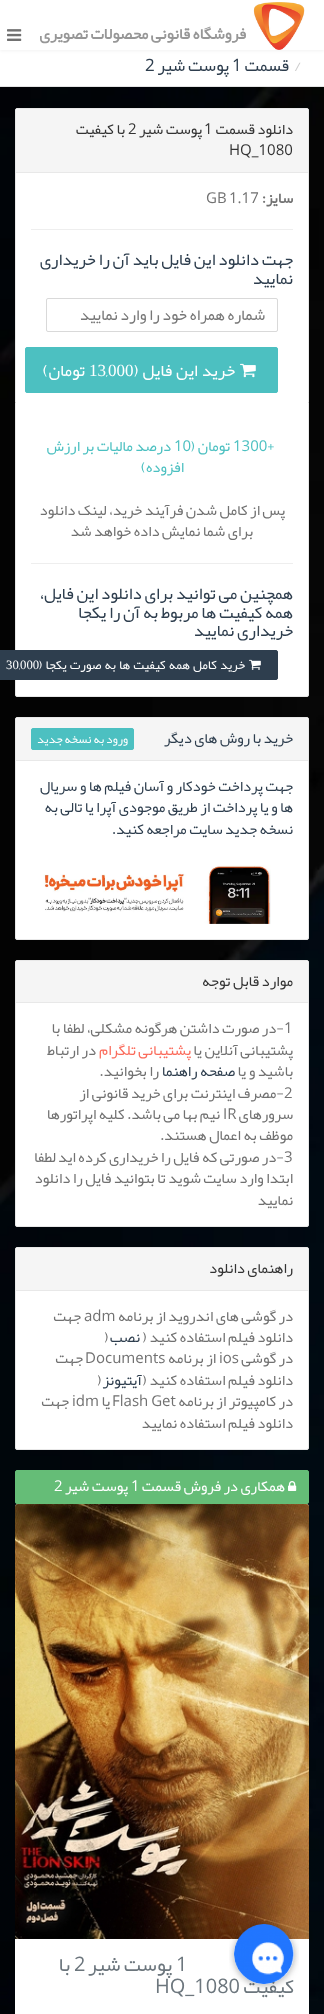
async function draw(canvas) {
  canvas.width = 324
  canvas.height = 2014
  const ctx = canvas.getContext('2d')
  ctx.miterLimit = 4
  ctx.fontKerning = 'normal'
  async function loadImage(src) {
    const img = new Image()
    img.src = src
    await img.decode()
    return img
  }

  ctx.fillStyle = '#fff'
  ctx.fillRect(0, 0, 324, 2014)
  ctx.fillStyle = '#0000000d'
  ctx.filter = 'blur(1.5px)'
  ctx.beginPath()
  ctx.rect(0, 1, 324, 50)
  ctx.fill()
  ctx.filter = 'none'
  ctx.fillStyle = '#fff'
  ctx.fillRect(0, 0, 324, 50)
  ctx.drawImage(await loadImage('image0.png'), 253, 2, 52, 48)
  ctx.direction = 'rtl'
  ctx.font = 'bold 16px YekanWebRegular'
  ctx.fillStyle = '#979797'
  ctx.fillText('فروشگاه قانونی محصولات تصویری', 246, 39)
  ctx.drawImage(await loadImage('image1.png'), 7, 29, 15, 12)
  ctx.fillStyle = '#e4e4e4'
  ctx.fillRect(0, 86, 324, 1)
  ctx.direction = 'ltr'
  ctx.font = '17px YekanWebRegular'
  ctx.fillStyle = '#ccc'
  ctx.fillText('/', 294, 71)
  ctx.direction = 'rtl'
  ctx.fillStyle = '#2e3e4e'
  ctx.fillText('قسمت', 289, 71)
  ctx.direction = 'ltr'
  ctx.font = '17px Open Sans'
  ctx.fillText('1', 232, 71)
  ctx.direction = 'rtl'
  ctx.font = '17px YekanWebRegular'
  ctx.fillText('پوست شیر', 229, 71)
  ctx.direction = 'ltr'
  ctx.font = '17px Open Sans'
  ctx.fillText('2', 145, 71)
  ctx.drawImage(await loadImage('image2.png'), 0, 87, 324, 1927)
  ctx.fillStyle = '#fff'
  ctx.beginPath()
  ctx.roundRect(15.5, 108.5, 293, 588, 1.5)
  ctx.fill()
  ctx.strokeStyle = '#e8e8e8'
  ctx.stroke()
  ctx.fillStyle = '#f5f5f5'
  ctx.beginPath()
  ctx.roundRect(16, 109, 292, 64, [2, 2, 0, 0])
  ctx.fill()
  ctx.fillStyle = '#e8e8e8'
  ctx.fillRect(16, 172, 292, 1)
  ctx.direction = 'rtl'
  ctx.font = '15px YekanWebRegular'
  ctx.fillStyle = '#333'
  ctx.fillText('دانلود قسمت', 293, 134)
  ctx.direction = 'ltr'
  ctx.font = '15px Open Sans'
  ctx.fillText('1', 204, 134)
  ctx.direction = 'rtl'
  ctx.font = '15px YekanWebRegular'
  ctx.fillText('پوست شیر', 202, 134)
  ctx.direction = 'ltr'
  ctx.font = '15px Open Sans'
  ctx.fillText('2', 128, 134)
  ctx.direction = 'rtl'
  ctx.font = '15px YekanWebRegular'
  ctx.fillText('با کیفیت', 125, 134)
  ctx.direction = 'ltr'
  ctx.font = '15px Open Sans'
  ctx.fillText('HQ_1080', 229, 155)
  ctx.direction = 'rtl'
  ctx.font = 'bold 15px YekanWebRegular'
  ctx.fillStyle = '#717171'
  ctx.fillText('سایز:', 293, 203)
  ctx.direction = 'ltr'
  ctx.font = '15px Open Sans'
  ctx.fillText('1.17', 229, 203)
  ctx.fillText('GB', 206, 203)
  ctx.fillStyle = '#eee'
  ctx.fillRect(31, 229, 262, 1)
  ctx.direction = 'rtl'
  ctx.font = '17px YekanWebRegular'
  ctx.fillStyle = '#2e3e4e'
  ctx.fillText('جهت دانلود این فایل باید آن را خریداری', 293, 265)
  ctx.fillText('نمایید', 293, 284)
  ctx.beginPath()
  ctx.roundRect(46.5, 298.5, 231, 33, 1.5)
  ctx.strokeStyle = '#d9d9d9'
  ctx.stroke()
  ctx.font = '16px YekanWebRegular'
  ctx.fillStyle = '#777'
  ctx.fillText('شماره همراه خود را وارد نمایید', 265, 320)
  ctx.fillStyle = '#4cc0c1'
  ctx.beginPath()
  ctx.roundRect(25.5, 347.5, 252, 45, 1.5)
  ctx.fill()
  ctx.strokeStyle = '#4cc0c1'
  ctx.stroke()
  ctx.drawImage(await loadImage('image3.png'), 240, 363, 16, 15)
  ctx.wordSpacing = '1px'
  ctx.font = '17px YekanWebRegular'
  ctx.fillStyle = '#fff'
  ctx.fillText('خرید این فایل (', 235, 376)
  ctx.wordSpacing = '0px'
  ctx.direction = 'ltr'
  ctx.font = '17px Liberation Serif'
  ctx.fillText('000', 108, 376)
  ctx.fillText('13', 89, 376)
  ctx.font = '17px YekanWebRegular'
  ctx.fillText(',', 106, 376)
  ctx.direction = 'rtl'
  ctx.fillText('تومان)', 85, 376)
  ctx.direction = 'ltr'
  ctx.font = '15px YekanWebRegular'
  ctx.fillStyle = '#4cc0c1'
  ctx.fillText('+', 267, 451)
  ctx.font = '15px Open Sans'
  ctx.fillText('1300', 233, 451)
  ctx.direction = 'rtl'
  ctx.font = '15px YekanWebRegular'
  ctx.fillText('تومان (', 230, 451)
  ctx.direction = 'ltr'
  ctx.font = '15px Open Sans'
  ctx.fillText('10', 174, 451)
  ctx.direction = 'rtl'
  ctx.font = '15px YekanWebRegular'
  ctx.fillText('درصد مالیات بر ارزش', 171, 451)
  ctx.fillText('افزوده)', 184, 472)
  ctx.fillStyle = '#717171'
  ctx.fillText('پس از کامل شدن فرآیند خرید، لینک دانلود', 285, 515)
  ctx.fillText('برای شما نمایش داده خواهد شد', 253, 536)
  ctx.fillStyle = '#eee'
  ctx.fillRect(31, 563, 262, 1)
  ctx.font = '17px YekanWebRegular'
  ctx.fillStyle = '#2e3e4e'
  ctx.fillText('همچنین می توانید برای دانلود این فایل،', 293, 599)
  ctx.fillText('همه کیفیت ها مربوط به آن را یکجا', 293, 618)
  ctx.fillText('خریداری نمایید', 293, 636)
  ctx.beginPath()
  ctx.roundRect(-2.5, 650.5, 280, 29, 1.5)
  ctx.fill()
  ctx.strokeStyle = '#2e3e4e'
  ctx.stroke()
  ctx.drawImage(await loadImage('image4.png'), 249, 659, 12, 11)
  ctx.wordSpacing = '1px'
  ctx.font = '12.75px YekanWebRegular'
  ctx.fillStyle = '#fff'
  ctx.fillText('خرید کامل همه کیفیت ها به صورت یکجا (', 245, 669)
  ctx.wordSpacing = '0px'
  ctx.direction = 'ltr'
  ctx.font = '12.75px Liberation Serif'
  ctx.fillText('000', 20, 669)
  ctx.fillText('30', 6, 669)
  ctx.font = '12.75px YekanWebRegular'
  ctx.fillText(',', 19, 669)
  ctx.beginPath()
  ctx.roundRect(15.5, 717.5, 293, 222, 1.5)
  ctx.fill()
  ctx.strokeStyle = '#e8e8e8'
  ctx.stroke()
  ctx.fillStyle = '#f5f5f5'
  ctx.beginPath()
  ctx.roundRect(16, 718, 292, 43, [2, 2, 0, 0])
  ctx.fill()
  ctx.fillStyle = '#e8e8e8'
  ctx.fillRect(16, 760, 292, 1)
  ctx.direction = 'rtl'
  ctx.font = '15px YekanWebRegular'
  ctx.fillStyle = '#2e3e4e'
  ctx.fillText('خرید با روش های دیگر', 293, 743)
  ctx.fillStyle = '#4cc0c1'
  ctx.beginPath()
  ctx.roundRect(31.5, 728.5, 102, 21, 1.5)
  ctx.fill()
  ctx.strokeStyle = '#4cc0c1'
  ctx.stroke()
  ctx.font = '12px YekanWebRegular'
  ctx.fillStyle = '#fff'
  ctx.fillText('ورود به نسخه جدید', 128, 743)
  ctx.font = '15px YekanWebRegular'
  ctx.fillStyle = '#2e3e4e'
  ctx.fillText('جهت پرداخت خودکار و آسان فیلم ها و سریال', 293, 791)
  ctx.fillText('ها و یا پرداخت از طریق موجودی آپرا یا تالی به', 293, 812)
  ctx.fillText('نسخه جدید سایت مراجعه کنید.', 293, 834)
  ctx.drawImage(await loadImage('image5.png'), 43, 865, 228, 59)
  ctx.fillStyle = '#fff'
  ctx.beginPath()
  ctx.roundRect(15.5, 960.5, 293, 266, 1.5)
  ctx.fill()
  ctx.strokeStyle = '#e8e8e8'
  ctx.stroke()
  ctx.fillStyle = '#f5f5f5'
  ctx.beginPath()
  ctx.roundRect(16, 961, 292, 42, [2, 2, 0, 0])
  ctx.fill()
  ctx.fillStyle = '#e8e8e8'
  ctx.fillRect(16, 1002, 292, 1)
  ctx.fillStyle = '#333'
  ctx.fillText('موارد قابل توجه', 293, 986)
  ctx.direction = 'ltr'
  ctx.font = '15px Open Sans'
  ctx.fillStyle = '#717171'
  ctx.fillText('1', 284, 1033)
  ctx.direction = 'rtl'
  ctx.font = '15px YekanWebRegular'
  ctx.fillText('-در صورت داشتن هرگونه مشکلی، لطفا با', 284, 1033)
  ctx.fillText('پشتیبانی آنلاین یا', 293, 1055)
  ctx.fillStyle = '#fb6b5b'
  ctx.fillText('پشتیبانی تلگرام', 191, 1055)
  ctx.fillStyle = '#717171'
  ctx.fillText('در ارتباط', 96, 1055)
  ctx.fillText('باشید و یا', 293, 1076)
  ctx.fillStyle = '#2e3e4e'
  ctx.fillText('صفحه راهنما', 235, 1076)
  ctx.fillStyle = '#717171'
  ctx.fillText('را بخوانید.', 159, 1076)
  ctx.direction = 'ltr'
  ctx.font = '15px Open Sans'
  ctx.fillText('2', 284, 1098)
  ctx.direction = 'rtl'
  ctx.font = '15px YekanWebRegular'
  ctx.fillText('-مصرف اینترنت برای خرید قانونی از', 284, 1098)
  ctx.fillText('سرورهای', 293, 1119)
  ctx.direction = 'ltr'
  ctx.font = '15px Open Sans'
  ctx.fillText('IR', 223, 1119)
  ctx.direction = 'rtl'
  ctx.font = '15px YekanWebRegular'
  ctx.fillText('نیم بها می باشد. کلیه اپراتورها', 220, 1119)
  ctx.fillText('موظف به اعمال هستند.', 293, 1140)
  ctx.direction = 'ltr'
  ctx.font = '15px Open Sans'
  ctx.fillText('3', 284, 1162)
  ctx.direction = 'rtl'
  ctx.font = '15px YekanWebRegular'
  ctx.fillText('-در صورتی که فایل را خریداری کرده اید لطفا', 284, 1162)
  ctx.fillText('ابتدا وارد سایت شوید تا بتوانید فایل را دانلود', 293, 1183)
  ctx.fillText('نمایید', 293, 1205)
  ctx.fillStyle = '#fff'
  ctx.beginPath()
  ctx.roundRect(15.5, 1247.5, 293, 202, 1.5)
  ctx.fill()
  ctx.stroke()
  ctx.fillStyle = '#f5f5f5'
  ctx.beginPath()
  ctx.roundRect(16, 1248, 292, 43, [2, 2, 0, 0])
  ctx.fill()
  ctx.fillStyle = '#e8e8e8'
  ctx.fillRect(16, 1290, 292, 1)
  ctx.fillStyle = '#333'
  ctx.fillText('راهنمای دانلود', 293, 1273)
  ctx.fillStyle = '#717171'
  ctx.fillText('در گوشی های اندروید از برنامه', 293, 1321)
  ctx.direction = 'ltr'
  ctx.font = '15px Open Sans'
  ctx.fillText('adm', 84, 1321)
  ctx.direction = 'rtl'
  ctx.font = '15px YekanWebRegular'
  ctx.fillText('جهت', 81, 1321)
  ctx.fillText('دانلود فیلم استفاده کنید (', 293, 1342)
  ctx.fillStyle = '#2e3e4e'
  ctx.fillText('نصب', 140, 1342)
  ctx.direction = 'ltr'
  ctx.fillStyle = '#717171'
  ctx.fillText(')', 104, 1342)
  ctx.direction = 'rtl'
  ctx.fillText('در گوشی', 293, 1363)
  ctx.direction = 'ltr'
  ctx.font = '15px Open Sans'
  ctx.fillText('ios', 219, 1363)
  ctx.direction = 'rtl'
  ctx.font = '15px YekanWebRegular'
  ctx.fillText('از برنامه', 216, 1363)
  ctx.direction = 'ltr'
  ctx.font = '15px Open Sans'
  ctx.fillText('Documents', 85, 1363)
  ctx.direction = 'rtl'
  ctx.font = '15px YekanWebRegular'
  ctx.fillText('جهت', 83, 1363)
  ctx.fillText('دانلود فیلم استفاده کنید (', 293, 1385)
  ctx.fillStyle = '#2e3e4e'
  ctx.fillText('آیتیونز', 142, 1385)
  ctx.direction = 'ltr'
  ctx.fillStyle = '#717171'
  ctx.fillText(')', 97, 1385)
  ctx.direction = 'rtl'
  ctx.fillText('در کامپیوتر از برنامه', 293, 1406)
  ctx.wordSpacing = '-1px'
  ctx.direction = 'ltr'
  ctx.font = '15px Open Sans'
  ctx.fillText('Flash Get', 112, 1406)
  ctx.wordSpacing = '0px'
  ctx.direction = 'rtl'
  ctx.font = '15px YekanWebRegular'
  ctx.fillText('یا', 110, 1406)
  ctx.direction = 'ltr'
  ctx.font = '15px Open Sans'
  ctx.fillText('idm', 72, 1406)
  ctx.direction = 'rtl'
  ctx.font = '15px YekanWebRegular'
  ctx.fillText('جهت', 69, 1406)
  ctx.fillText('دانلود فیلم استفاده نمایید', 293, 1428)
  ctx.fillStyle = '#65bd77'
  ctx.beginPath()
  ctx.roundRect(15.5, 1470.5, 293, 33, 1.5)
  ctx.fill()
  ctx.strokeStyle = '#65bd77'
  ctx.stroke()
  ctx.drawImage(await loadImage('image6.png'), 288, 1481, 9, 10)
  ctx.fillStyle = '#fff'
  ctx.fillText('همکاری در فروش', 285, 1491)
  ctx.fillText('قسمت', 181, 1491)
  ctx.direction = 'ltr'
  ctx.font = '15px Open Sans'
  ctx.fillText('1', 131, 1491)
  ctx.direction = 'rtl'
  ctx.font = '15px YekanWebRegular'
  ctx.fillText('پوست شیر', 128, 1491)
  ctx.direction = 'ltr'
  ctx.font = '15px Open Sans'
  ctx.fillText('2', 54, 1491)
  ctx.beginPath()
  ctx.roundRect(15, 1504, 294, 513, 3)
  ctx.fill()
  ctx.drawImage(await loadImage('image7.png'), 15, 1504, 294, 435)
  ctx.font = '20px Open Sans'
  ctx.fillStyle = '#6c767d'
  ctx.fillText('1', 176, 1971)
  ctx.direction = 'rtl'
  ctx.font = '20px YekanWebRegular'
  ctx.fillText('پوست شیر', 172, 1971)
  ctx.direction = 'ltr'
  ctx.font = '20px Open Sans'
  ctx.fillText('2', 74, 1971)
  ctx.direction = 'rtl'
  ctx.font = '20px YekanWebRegular'
  ctx.fillText('با', 70, 1971)
  ctx.fillText('کیفیت', 294, 1993)
  ctx.direction = 'ltr'
  ctx.font = '20px Open Sans'
  ctx.fillText('HQ_1080', 155, 1993)
  ctx.drawImage(await loadImage('image8.png'), 229, 1920, 70, 70)
}

draw(document.querySelector('canvas'))
